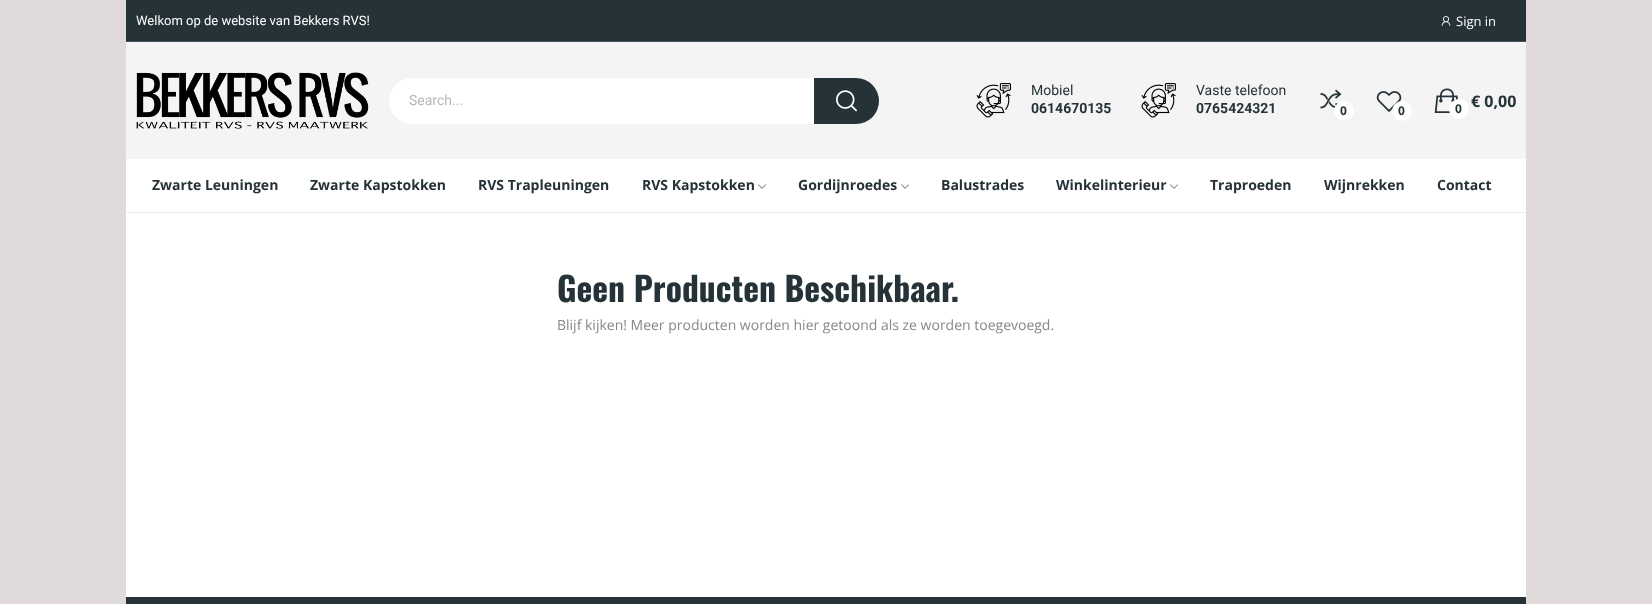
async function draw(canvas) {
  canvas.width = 1652
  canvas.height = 604
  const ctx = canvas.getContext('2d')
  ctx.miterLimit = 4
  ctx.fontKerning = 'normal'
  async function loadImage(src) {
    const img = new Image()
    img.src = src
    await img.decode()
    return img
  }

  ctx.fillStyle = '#e1dada'
  ctx.fillRect(0, 0, 1652, 604)
  ctx.fillStyle = '#fff'
  ctx.fillRect(126, 159, 1400, 438)
  ctx.fillStyle = '#ebebeb'
  ctx.fillRect(126, 212, 1400, 1)
  ctx.fillStyle = '#253237'
  ctx.fillRect(126, 0, 1400, 41)
  ctx.fillStyle = '#4a5559'
  ctx.fillRect(126, 41, 1400, 1)
  ctx.font = '13px Roboto'
  ctx.fillStyle = '#fff'
  ctx.fillText('Welkom op de website van Bekkers RVS!', 136, 25)
  ctx.drawImage(await loadImage('image0.png'), 1441, 16, 10, 10)
  ctx.font = '13px Open Sans'
  ctx.fillText('Sign in', 1456, 26)
  ctx.fillStyle = '#f4f4f4'
  ctx.fillRect(126, 42, 1400, 117)
  ctx.drawImage(await loadImage('image1.png'), 136, 72, 233, 57)
  ctx.fillStyle = '#fff'
  ctx.beginPath()
  ctx.roundRect(389, 78, 425, 46, [23, 0, 0, 23])
  ctx.fill()
  ctx.font = '14px Roboto'
  ctx.fillStyle = '#b7b7b7'
  ctx.fillText('Search...', 409, 105)
  ctx.fillStyle = '#253237'
  ctx.beginPath()
  ctx.roundRect(814, 78, 65, 46, [0, 23, 23, 0])
  ctx.fill()
  ctx.drawImage(await loadImage('image2.png'), 836, 90, 21, 22)
  ctx.drawImage(await loadImage('image3.png'), 976, 83, 35, 35)
  ctx.fillText('Mobiel', 1031, 95)
  ctx.font = 'bold 14px Roboto'
  ctx.fillText('0614670135', 1031, 113)
  ctx.drawImage(await loadImage('image3.png'), 1141, 83, 35, 35)
  ctx.font = '14px Roboto'
  ctx.fillText('Vaste telefoon', 1196, 95)
  ctx.font = 'bold 14px Roboto'
  ctx.fillText('0765424321', 1196, 113)
  ctx.drawImage(await loadImage('image4.png'), 1320, 89, 22, 20)
  ctx.fillStyle = '#fff'
  ctx.beginPath()
  ctx.arc(1344, 111, 10, 0, 2 * Math.PI)
  ctx.fill()
  ctx.font = 'bold 12px Open Sans'
  ctx.fillStyle = '#253237'
  ctx.fillText('0', 1340, 115)
  ctx.drawImage(await loadImage('image5.png'), 1376, 91, 26, 21)
  ctx.fillStyle = '#fff'
  ctx.beginPath()
  ctx.arc(1402, 111, 10, 0, 2 * Math.PI)
  ctx.fill()
  ctx.fillStyle = '#253237'
  ctx.fillText('0', 1398, 115)
  ctx.drawImage(await loadImage('image6.png'), 1434, 88, 24, 25)
  ctx.fillStyle = '#fff'
  ctx.beginPath()
  ctx.arc(1459, 109, 10, 0, 2 * Math.PI)
  ctx.fill()
  ctx.fillStyle = '#253237'
  ctx.fillText('0', 1455, 113)
  ctx.font = 'bold 16px Open Sans'
  ctx.fillText('€ 0,00', 1471, 107)
  ctx.font = 'bold 14px Open Sans'
  ctx.fillText('Zwarte Leuningen', 152, 190)
  ctx.fillText('Zwarte Kapstokken', 310, 190)
  ctx.fillText('RVS Trapleuningen', 478, 190)
  ctx.fillText('RVS Kapstokken', 642, 190)
  ctx.drawImage(await loadImage('image7.png'), 758, 184, 8, 5)
  ctx.fillText('Gordijnroedes', 798, 190)
  ctx.drawImage(await loadImage('image7.png'), 901, 184, 8, 5)
  ctx.fillText('Balustrades', 941, 190)
  ctx.fillText('Winkelinterieur', 1056, 190)
  ctx.drawImage(await loadImage('image7.png'), 1170, 184, 8, 5)
  ctx.fillText('Traproeden', 1210, 190)
  ctx.fillText('Wijnrekken', 1324, 190)
  ctx.fillText('Contact', 1437, 190)
  ctx.font = 'bold 33.6px Oswald'
  ctx.fillText('Geen Producten Beschikbaar.', 557, 302)
  ctx.font = '14px Open Sans'
  ctx.fillStyle = '#888'
  ctx.fillText('Blijf kijken! Meer producten worden hier getoond als ze worden toegevoegd.', 557, 330)
  ctx.fillStyle = '#253237'
  ctx.fillRect(126, 597, 1400, 7)
}

draw(document.querySelector('canvas'))
